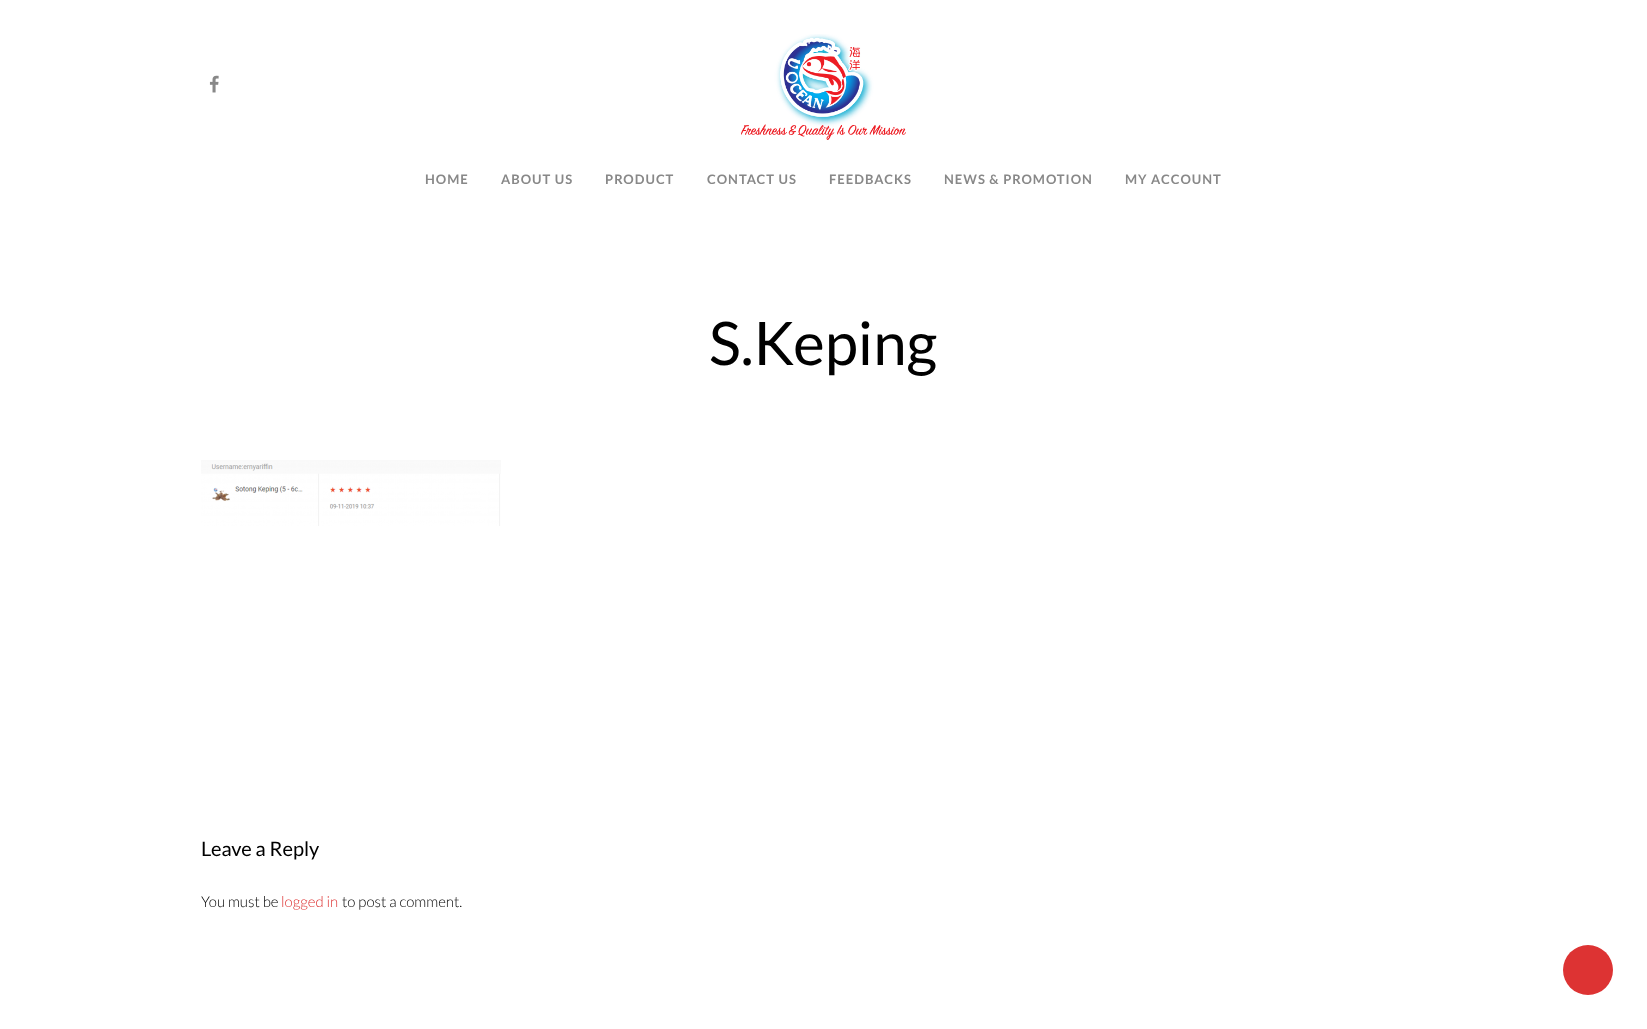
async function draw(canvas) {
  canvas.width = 1647
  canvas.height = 1029
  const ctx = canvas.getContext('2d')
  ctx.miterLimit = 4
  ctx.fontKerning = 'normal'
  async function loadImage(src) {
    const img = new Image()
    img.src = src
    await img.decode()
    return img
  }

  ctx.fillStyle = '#fff'
  ctx.fillRect(0, 0, 1647, 1029)
  ctx.drawImage(await loadImage('image0.png'), 209, 75, 10, 18)
  ctx.drawImage(await loadImage('image1.png'), 741, 34, 165, 106)
  ctx.letterSpacing = '1px'
  ctx.font = 'bold 13px Lato'
  ctx.fillStyle = '#888'
  ctx.fillText('HOME', 425, 184)
  ctx.fillText('ABOUT US', 501, 184)
  ctx.fillText('PRODUCT', 605, 184)
  ctx.fillText('CONTACT US', 707, 184)
  ctx.fillText('FEEDBACKS', 829, 184)
  ctx.fillText('NEWS & PROMOTION', 944, 184)
  ctx.fillText('MY ACCOUNT', 1125, 184)
  ctx.letterSpacing = '0px'
  ctx.font = '60px Lato'
  ctx.fillStyle = '#000'
  ctx.fillText('S.Keping', 709, 365)
  ctx.drawImage(await loadImage('image2.png'), 201, 460, 300, 66)
  ctx.font = '20px Lato'
  ctx.fillText('Leave a Reply', 201, 856)
  ctx.font = '300 15px Lato'
  ctx.fillText('You must be', 201, 907)
  ctx.fillStyle = '#d33'
  ctx.fillText('logged in', 281, 907)
  ctx.fillStyle = '#000'
  ctx.fillText('to post a comment.', 342, 907)
  ctx.fillStyle = '#d33'
  ctx.beginPath()
  ctx.arc(1588, 970, 25, 0, 2 * Math.PI)
  ctx.fill()
}

draw(document.querySelector('canvas'))
